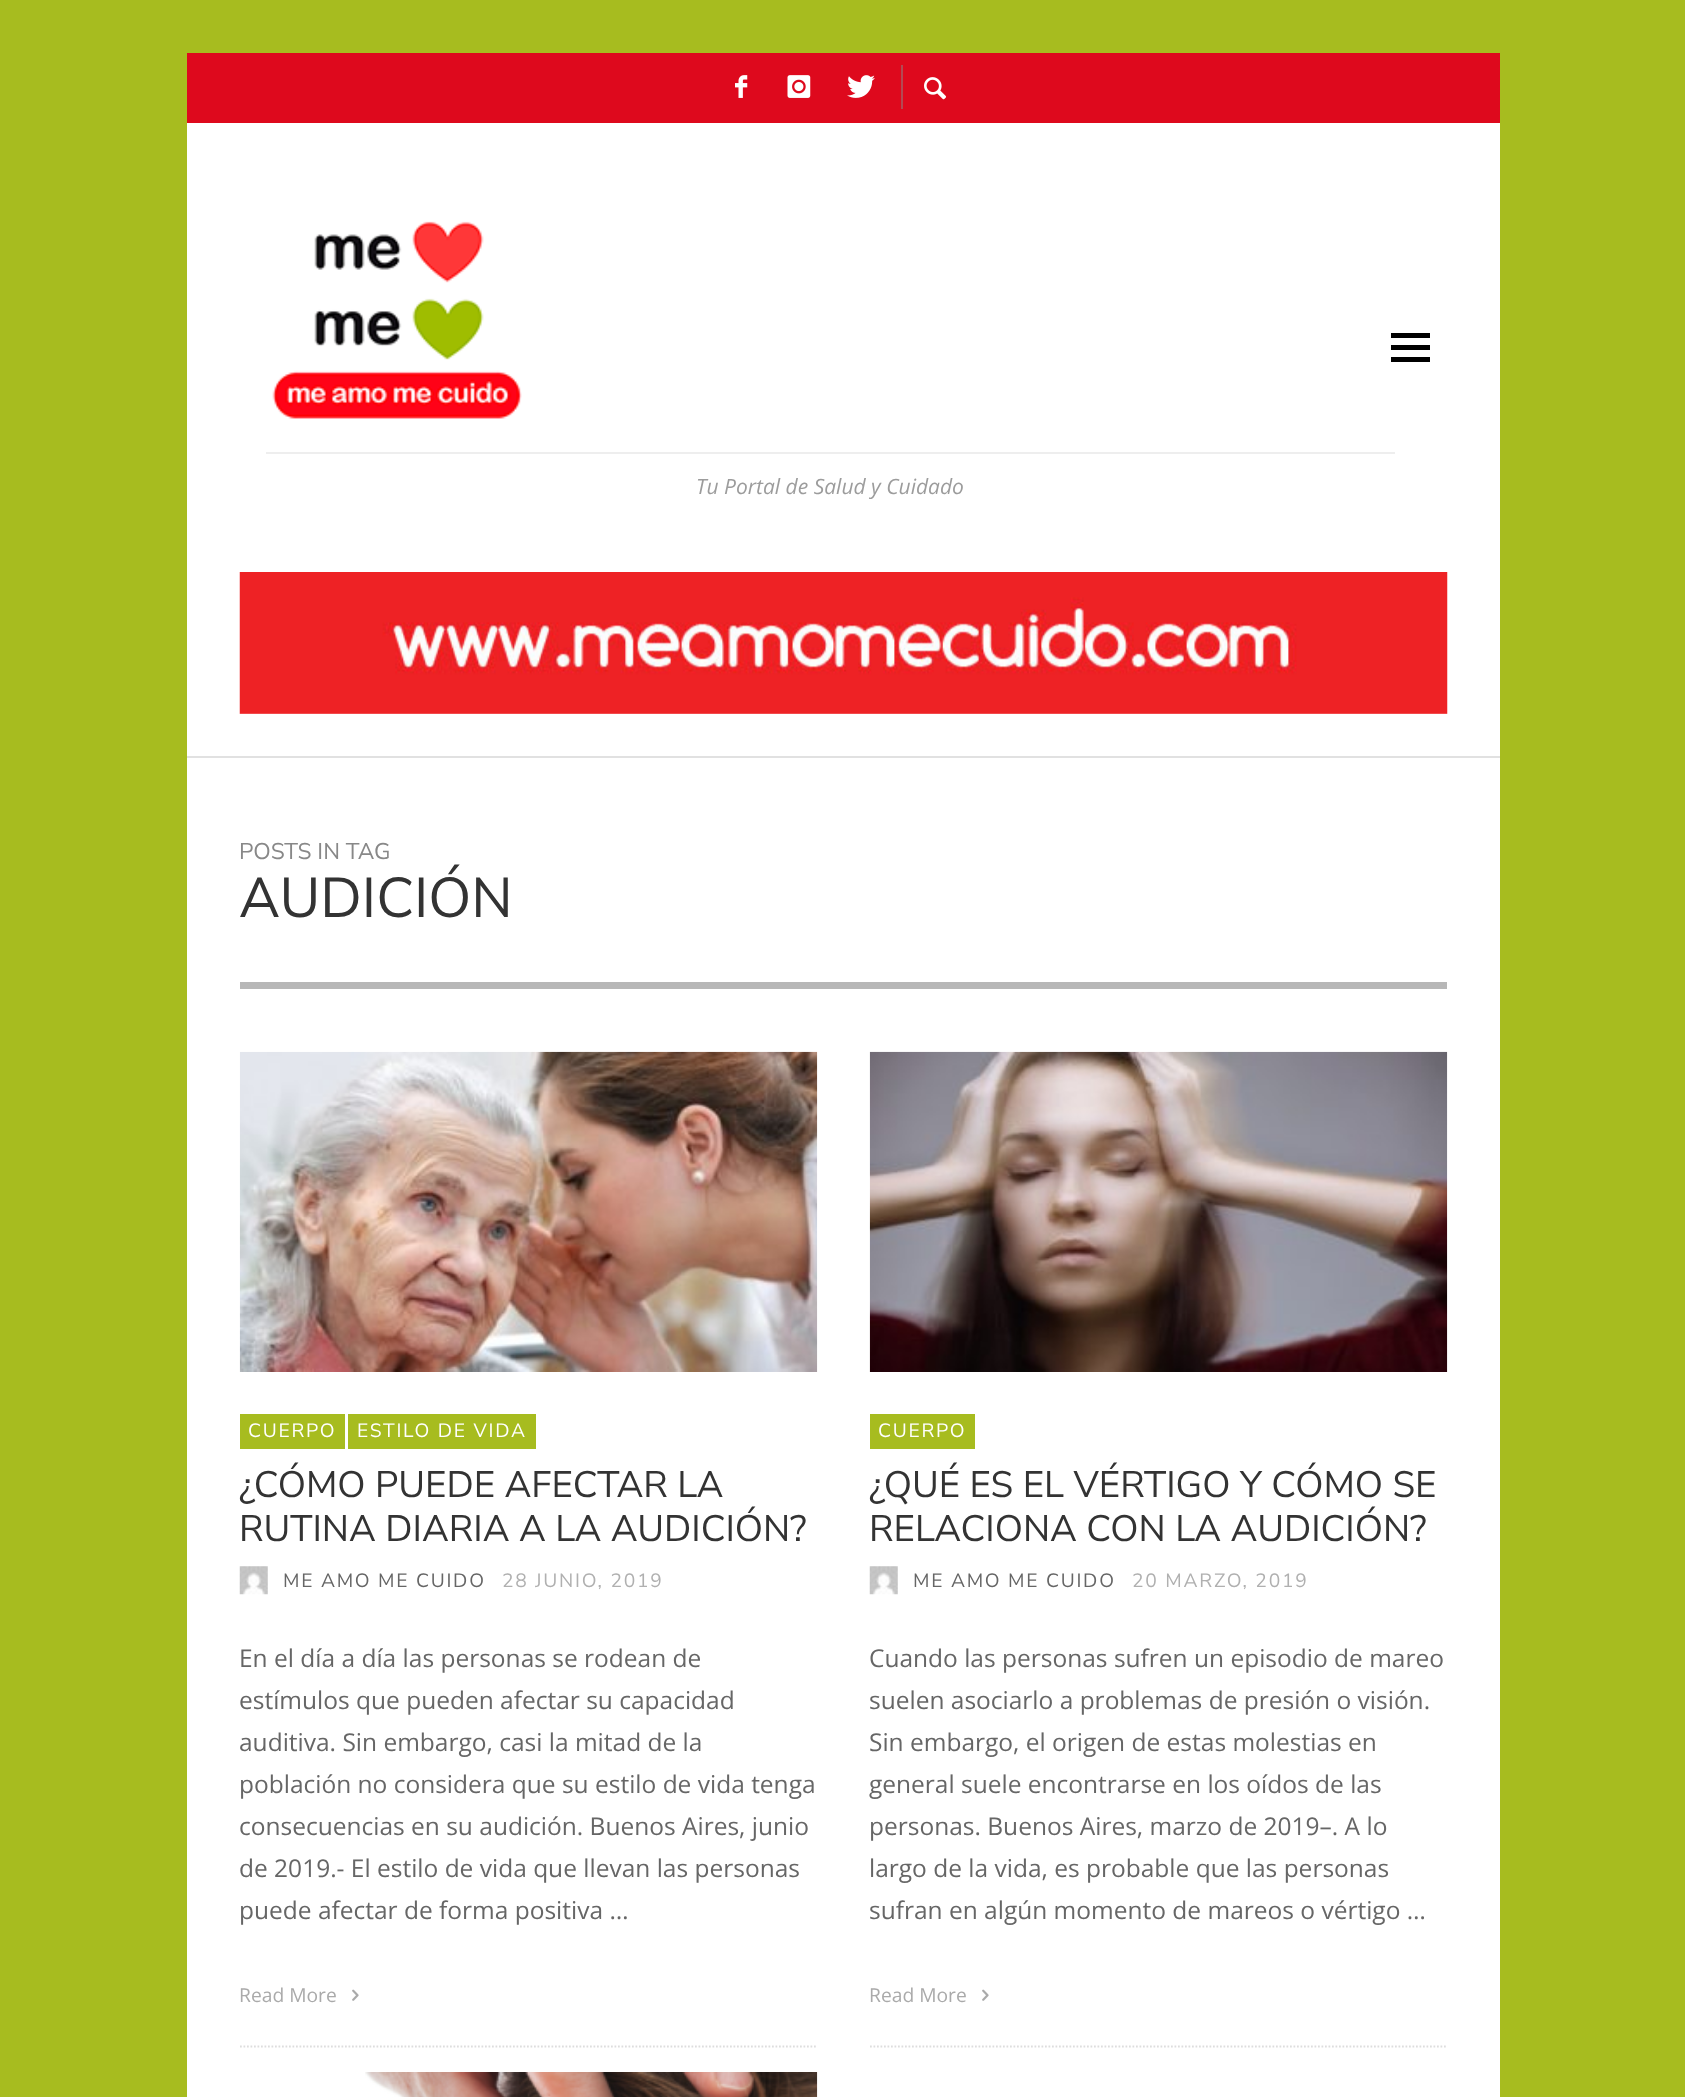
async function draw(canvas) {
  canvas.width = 1685
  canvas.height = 2097
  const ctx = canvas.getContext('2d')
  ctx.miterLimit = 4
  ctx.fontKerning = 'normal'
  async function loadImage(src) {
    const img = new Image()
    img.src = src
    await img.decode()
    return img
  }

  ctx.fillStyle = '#a7bc1f'
  ctx.fillRect(0, 0, 1685, 2097)
  ctx.fillStyle = '#fff'
  ctx.fillRect(187, 123, 1313, 1974)
  ctx.fillStyle = '#e1e1e1'
  ctx.fillRect(187, 756, 1313, 2)
  ctx.fillStyle = '#de091d'
  ctx.fillRect(187, 53, 1313, 70)
  ctx.drawImage(await loadImage('image0.png'), 735, 75, 13, 23)
  ctx.drawImage(await loadImage('image1.png'), 787, 75, 24, 23)
  ctx.drawImage(await loadImage('image2.png'), 847, 75, 28, 23)
  ctx.fillStyle = '#b34953'
  ctx.fillRect(901, 65, 2, 44)
  ctx.drawImage(await loadImage('image3.png'), 924, 77, 23, 23)
  ctx.fillStyle = '#000'
  ctx.fillRect(1391, 345, 39, 5)
  ctx.fillRect(1391, 333, 39, 5)
  ctx.fillRect(1391, 357, 39, 5)
  ctx.drawImage(await loadImage('image4.png'), 272, 221, 250, 198)
  ctx.fillStyle = '#eee'
  ctx.fillRect(266, 452, 1129, 2)
  ctx.font = 'italic 21px Open Sans'
  ctx.fillStyle = '#9c9c9c'
  ctx.fillText('Tu Portal de Salud y Cuidado', 696, 494)
  ctx.drawImage(await loadImage('image5.png'), 239, 572, 1209, 142)
  ctx.font = '22.75px Nunito Sans'
  ctx.fillStyle = '#888'
  ctx.fillText('POSTS IN TAG', 239, 859)
  ctx.font = '56px Nunito Sans'
  ctx.fillStyle = '#333'
  ctx.fillText('AUDICIÓN', 239, 917)
  ctx.fillStyle = '#b7b7b7'
  ctx.fillRect(240, 982, 1207, 7)
  ctx.beginPath()
  ctx.moveTo(240, 2046.5)
  ctx.lineTo(817, 2046.5)
  ctx.strokeStyle = '#ddd'
  ctx.lineWidth = 1.8
  ctx.setLineDash([1.75, 1.75])
  ctx.stroke()
  ctx.drawImage(await loadImage('image6.png'), 239, 1051, 579, 321)
  ctx.fillStyle = '#a7bc1f'
  ctx.fillRect(240, 1414, 105, 35)
  ctx.letterSpacing = '1.75px'
  ctx.font = '19.25px Nunito Sans'
  ctx.fillStyle = '#fff'
  ctx.fillText('CUERPO', 248, 1437)
  ctx.fillStyle = '#a7bc1f'
  ctx.fillRect(348, 1414, 188, 35)
  ctx.fillStyle = '#fff'
  ctx.fillText('ESTILO DE VIDA', 357, 1437)
  ctx.letterSpacing = '0px'
  ctx.font = '36.75px Nunito Sans'
  ctx.fillStyle = '#333'
  ctx.fillText('¿CÓMO PUEDE AFECTAR LA', 239, 1497)
  ctx.fillText('RUTINA DIARIA A LA AUDICIÓN?', 239, 1541)
  ctx.drawImage(await loadImage('image7.png'), 239, 1566, 29, 29)
  ctx.letterSpacing = '1.75px'
  ctx.font = '19.25px Nunito Sans'
  ctx.fillStyle = '#666'
  ctx.fillText('ME AMO ME CUIDO', 283, 1587)
  ctx.fillStyle = '#b0b0b0'
  ctx.fillText('28 JUNIO, 2019', 502, 1587)
  ctx.letterSpacing = '0px'
  ctx.font = '24.5px Open Sans'
  ctx.fillStyle = '#666'
  ctx.fillText('En el día a día las personas se rodean de', 239, 1667)
  ctx.fillText('estímulos que pueden afectar su capacidad', 239, 1709)
  ctx.fillText('auditiva. Sin embargo, casi la mitad de la', 239, 1751)
  ctx.fillText('población no considera que su estilo de vida tenga', 239, 1793)
  ctx.fillText('consecuencias en su audición. Buenos Aires, junio', 239, 1835)
  ctx.fillText('de 2019.- El estilo de vida que llevan las personas', 239, 1877)
  ctx.fillText('puede afectar de forma positiva …', 239, 1919)
  ctx.font = '19.25px Open Sans'
  ctx.fillStyle = '#aaa'
  ctx.fillText('Read More', 239, 2002)
  ctx.drawImage(await loadImage('image8.png'), 352, 1989, 7, 12)
  ctx.beginPath()
  ctx.moveTo(870, 2046.5)
  ctx.lineTo(1447, 2046.5)
  ctx.stroke()
  ctx.drawImage(await loadImage('image9.png'), 869, 1051, 579, 321)
  ctx.fillStyle = '#a7bc1f'
  ctx.fillRect(870, 1414, 105, 35)
  ctx.letterSpacing = '1.75px'
  ctx.font = '19.25px Nunito Sans'
  ctx.fillStyle = '#fff'
  ctx.fillText('CUERPO', 878, 1437)
  ctx.letterSpacing = '0px'
  ctx.font = '36.75px Nunito Sans'
  ctx.fillStyle = '#333'
  ctx.fillText('¿QUÉ ES EL VÉRTIGO Y CÓMO SE', 869, 1497)
  ctx.fillText('RELACIONA CON LA AUDICIÓN?', 869, 1541)
  ctx.drawImage(await loadImage('image7.png'), 869, 1566, 29, 29)
  ctx.letterSpacing = '1.75px'
  ctx.font = '19.25px Nunito Sans'
  ctx.fillStyle = '#666'
  ctx.fillText('ME AMO ME CUIDO', 913, 1587)
  ctx.fillStyle = '#b0b0b0'
  ctx.fillText('20 MARZO, 2019', 1132, 1587)
  ctx.letterSpacing = '0px'
  ctx.font = '24.5px Open Sans'
  ctx.fillStyle = '#666'
  ctx.fillText('Cuando las personas sufren un episodio de mareo', 869, 1667)
  ctx.fillText('suelen asociarlo a problemas de presión o visión.', 869, 1709)
  ctx.fillText('Sin embargo, el origen de estas molestias en', 869, 1751)
  ctx.fillText('general suele encontrarse en los oídos de las', 869, 1793)
  ctx.fillText('personas. Buenos Aires, marzo de 2019–. A lo', 869, 1835)
  ctx.fillText('largo de la vida, es probable que las personas', 869, 1877)
  ctx.fillText('sufran en algún momento de mareos o vértigo …', 869, 1919)
  ctx.font = '19.25px Open Sans'
  ctx.fillStyle = '#aaa'
  ctx.fillText('Read More', 869, 2002)
  ctx.drawImage(await loadImage('image8.png'), 982, 1989, 7, 12)
  ctx.drawImage(await loadImage('image10.png'), 365, 2072, 453, 25)
}

draw(document.querySelector('canvas'))
